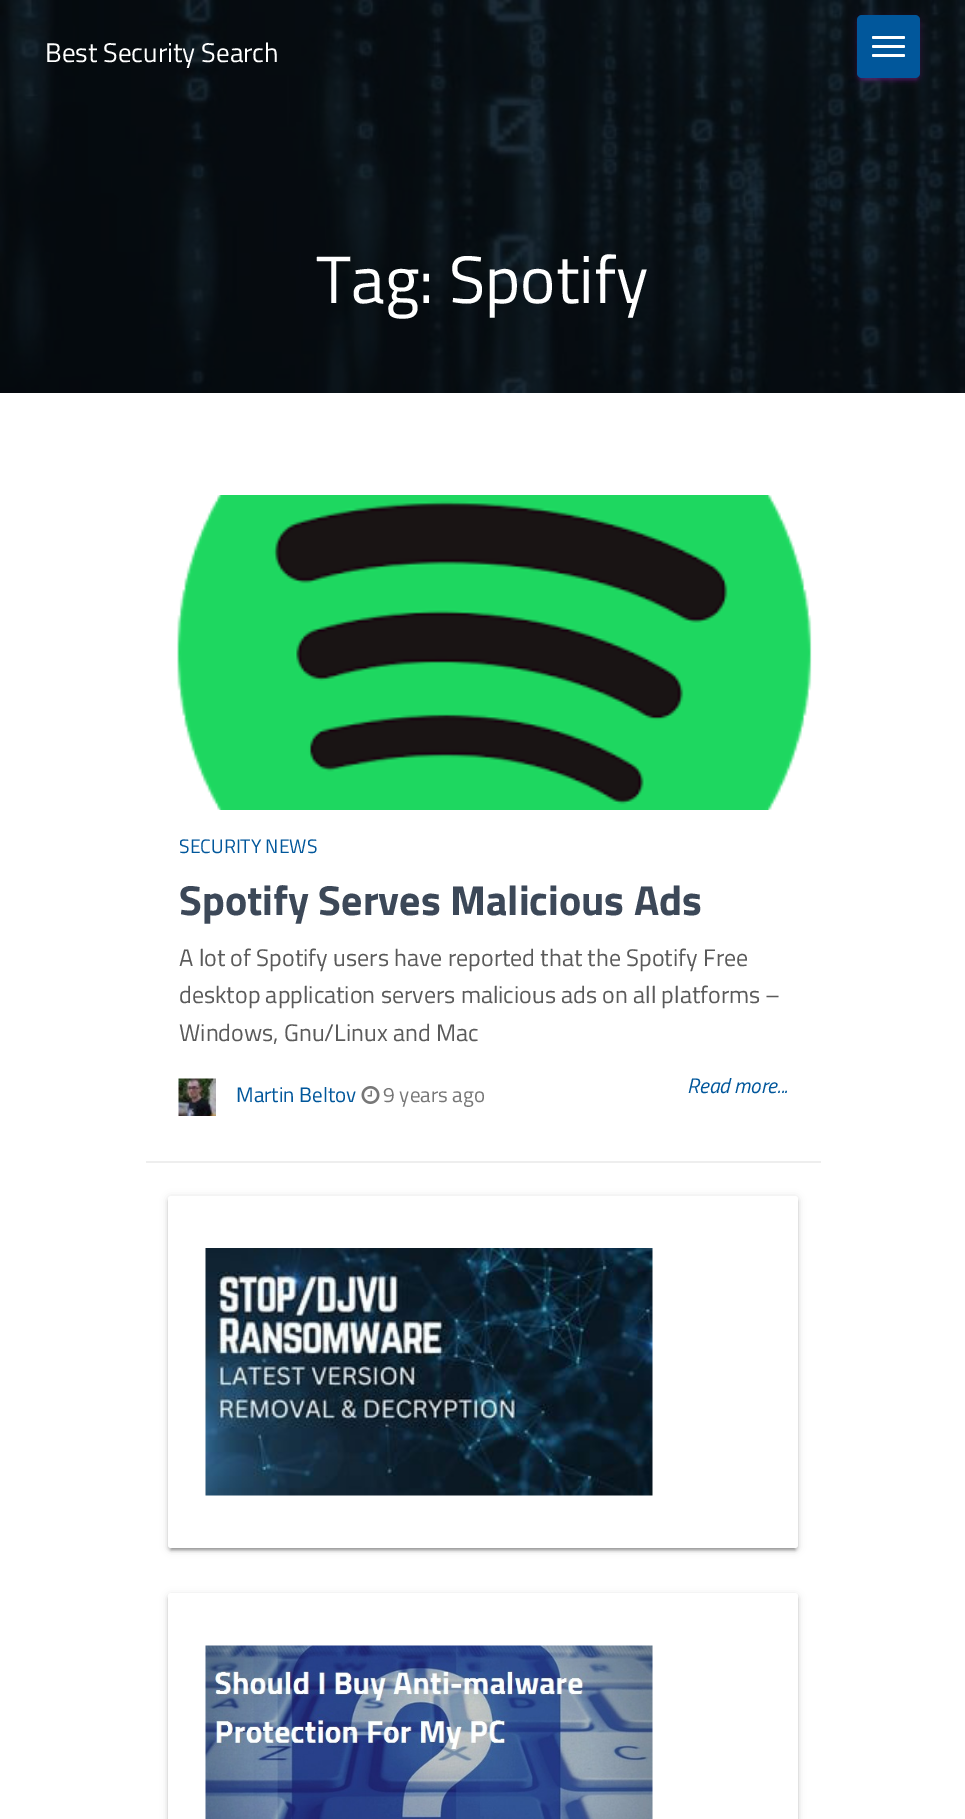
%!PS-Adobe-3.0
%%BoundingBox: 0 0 965 1819
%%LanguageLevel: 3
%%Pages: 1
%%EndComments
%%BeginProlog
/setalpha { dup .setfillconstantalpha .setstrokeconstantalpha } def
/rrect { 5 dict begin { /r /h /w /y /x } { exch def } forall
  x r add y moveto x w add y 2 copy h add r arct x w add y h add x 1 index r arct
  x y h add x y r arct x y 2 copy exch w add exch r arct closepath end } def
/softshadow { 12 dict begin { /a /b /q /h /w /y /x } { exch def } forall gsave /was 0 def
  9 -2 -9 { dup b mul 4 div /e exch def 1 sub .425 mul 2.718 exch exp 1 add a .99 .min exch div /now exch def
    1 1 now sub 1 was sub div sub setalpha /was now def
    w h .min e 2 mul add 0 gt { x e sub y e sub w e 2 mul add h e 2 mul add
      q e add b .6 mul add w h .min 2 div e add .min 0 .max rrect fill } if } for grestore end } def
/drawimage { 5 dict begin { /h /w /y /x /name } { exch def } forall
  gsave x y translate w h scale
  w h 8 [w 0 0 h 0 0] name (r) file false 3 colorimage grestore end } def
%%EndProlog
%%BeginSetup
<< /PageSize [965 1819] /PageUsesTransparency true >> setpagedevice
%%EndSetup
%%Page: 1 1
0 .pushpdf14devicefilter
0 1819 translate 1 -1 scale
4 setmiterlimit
1 setgray
0 0 965 1819 rectfill
(images/1.raw) 0 0 965 393 drawimage
0.612 0.153 0.69 setrgbcolor
857 17 63 63 5 4 0.12 softshadow
860 23 57 57 1.5 1 0.2 softshadow
857 18 63 63 5 1.5 0.14 softshadow
0.004 0.341 0.608 setrgbcolor
857 15 63 63 5 rrect fill
1 setgray
872 36 33 3 1.5 rrect fill
872 45 33 3 1.5 rrect fill
872 54 33 3 1.5 rrect fill
(images/2.raw) 177 495 635 315 drawimage
(images/3.raw) 178 1078 38 38 drawimage
(images/4.raw) 361 1086 19 18 drawimage
0.933 setgray
146 1161 675 2 rectfill
0 setgray
168 1197 630 353 3 4 0.12 softshadow
171 1203 624 347 0 1 0.2 softshadow
168 1199 630 352 3 1.5 0.14 softshadow
1 setgray
168 1196 630 352 3 rrect fill
(images/5.raw) 205 1248 448 248 drawimage
0 setgray
168 1595 630 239 3 4 0.12 softshadow
168 1596 630 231 3 1.5 0.14 softshadow
1 setgray
168 1593 630 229 3 rrect fill
(images/6.raw) 205 1645 448 174 drawimage
/TitilliumWeb-Regular [27 0 0 -27 0 0] selectfont
45 62 moveto (Best Security Search) show
/TitilliumWeb-Regular [67 0 0 -67 0 0] selectfont
316 303 moveto (Tag: Spotify) show
/TitilliumWeb-Regular [19.5 0 0 -19.5 0 0] selectfont
0.004 0.341 0.608 setrgbcolor
179 853 moveto (SECURITY NEWS) show
/TitilliumWeb-Bold [42 0 0 -42 0 0] selectfont
0.235 0.282 0.345 setrgbcolor
179 915 moveto (Spotify Serves Malicious Ads) show
/TitilliumWeb-Regular [24 0 0 -24 0 0] selectfont
0.353 setgray
179 966 moveto (A lot of Spotify users have reported that the Spotify Free) show
179 1003 moveto (desktop application servers malicious ads on all platforms –) show
179 1041 moveto (Windows, Gnu/Linux and Mac) show
/TitilliumWeb-Regular [21 0 0 -21 0 0] selectfont
0.004 0.341 0.608 setrgbcolor
236 1102 moveto (Martin Beltov) show
0.467 setgray
383 1102 moveto (9 years ago) show
/TitilliumWeb-Italic [21 0 0 -21 0 0] selectfont
0.004 0.341 0.608 setrgbcolor
687 1093 moveto (Read more...) show
.poppdf14devicefilter showpage
%%EOF
